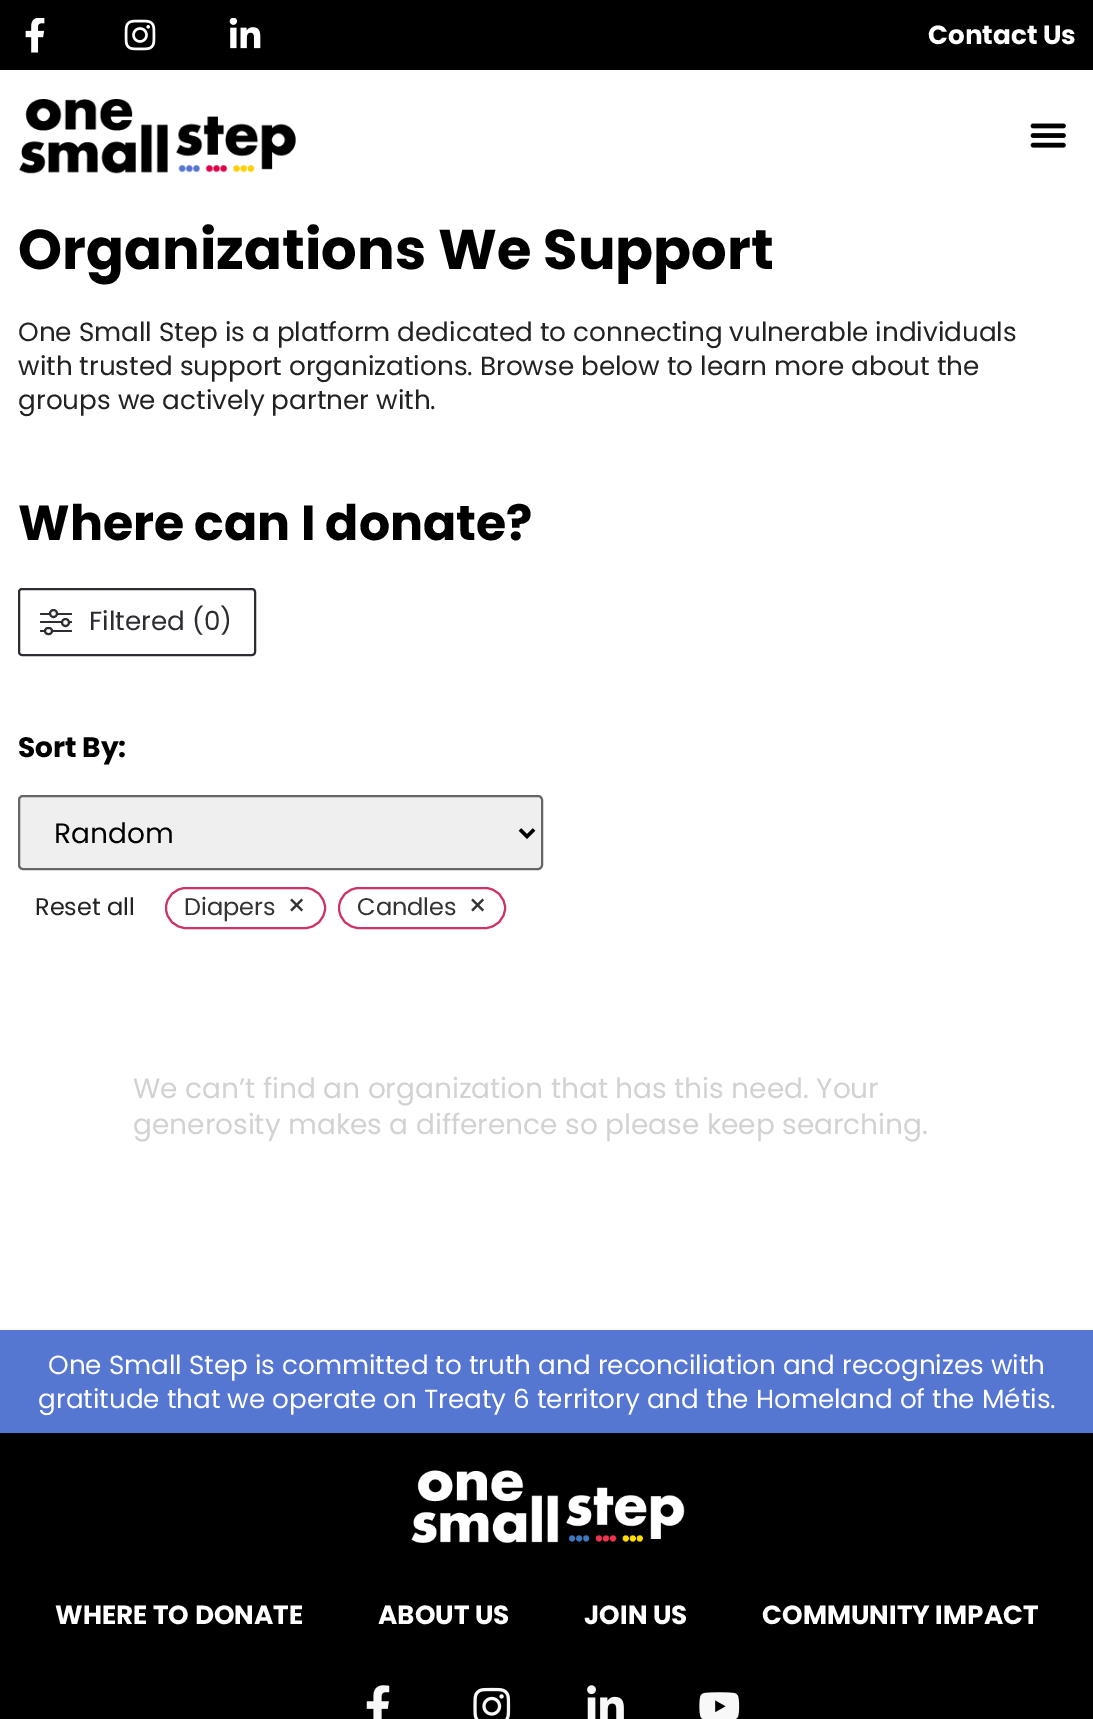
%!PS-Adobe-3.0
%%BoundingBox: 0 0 1093 1719
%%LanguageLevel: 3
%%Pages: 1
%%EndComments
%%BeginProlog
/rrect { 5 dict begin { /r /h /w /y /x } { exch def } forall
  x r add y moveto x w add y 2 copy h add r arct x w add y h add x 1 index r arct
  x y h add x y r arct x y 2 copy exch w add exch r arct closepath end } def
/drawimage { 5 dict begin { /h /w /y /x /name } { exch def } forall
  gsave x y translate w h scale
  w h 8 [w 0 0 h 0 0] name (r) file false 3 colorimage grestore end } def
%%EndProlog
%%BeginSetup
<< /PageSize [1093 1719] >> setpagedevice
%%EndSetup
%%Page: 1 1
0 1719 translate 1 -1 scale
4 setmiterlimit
1 setgray
0 0 1093 1719 rectfill
0 setgray
0 0 1093 70 rectfill
(images/1.raw) 25 18 20 35 drawimage
(images/2.raw) 124 19 32 32 drawimage
(images/3.raw) 229 18 32 31 drawimage
(images/4.raw) 19 99 277 75 drawimage
(images/5.raw) 1030 123 36 25 drawimage
0.173 0.176 0.2 setrgbcolor
2 setlinewidth
19 589 236 66 3 rrect stroke
40 613 32 2 1 rrect fill
1 setgray
newpath 53.5 613.5 3.5 0 360 arc closepath gsave fill grestore
0.173 0.176 0.2 setrgbcolor
stroke
40 621 32 2 1 rrect fill
1 setgray
newpath 65.5 622.5 3.5 0 360 arc closepath gsave fill grestore
0.173 0.176 0.2 setrgbcolor
stroke
40 630 32 2 1 rrect fill
1 setgray
45 628 7 6 3 rrect gsave fill grestore
0.173 0.176 0.2 setrgbcolor
stroke
0.937 setgray
19 796 523 73 4 rrect gsave fill grestore
0.4 setgray
stroke
0 setgray
3.5 setlinewidth
newpath 520 829.5 moveto 527 836.5 lineto 534 829.5 lineto stroke
0.8 0.2 0.4 setrgbcolor
2 setlinewidth
166 888 159 40 20 rrect stroke
339 888 166 40 20 rrect stroke
0.333 0.463 0.82 setrgbcolor
0 1330 1093 103 rectfill
0 setgray
0 1433 1093 286 rectfill
(images/6.raw) 411 1470 274 73 drawimage
(images/7.raw) 366 1685 24 34 drawimage
(images/8.raw) 473 1687 38 32 drawimage
(images/9.raw) 587 1685 37 34 drawimage
(images/10.raw) 699 1692 41 27 drawimage
/Poppins-Bold [26.25 0 0 -26.25 0 0] selectfont
1 setgray
928 44 moveto (Contact Us) show
/Poppins-Bold [56 0 0 -56 0 0] selectfont
0 setgray
18 269 moveto (Organizations We Support) show
/Poppins-Regular [26.25 0 0 -26.25 0 0] selectfont
0.133 setgray
18 341 moveto (One Small Step is a platform dedicated to connecting vulnerable individuals) show
18 375 moveto (with trusted support organizations. Browse below to learn more about the) show
18 409 moveto (groups we actively partner with.) show
/Poppins-Bold [49 0 0 -49 0 0] selectfont
0 setgray
18 540 moveto (Where can I donate?) show
/Poppins-Regular [26.25 0 0 -26.25 0 0] selectfont
0.173 0.176 0.2 setrgbcolor
89 630 moveto (Filtered \(0\)) show
/Poppins-Bold [28 0 0 -28 0 0] selectfont
0 setgray
18 757 moveto (Sort By:) show
/Poppins-Regular [28 0 0 -28 0 0] selectfont
54 843 moveto (Random) show
/Poppins-Regular [24 0 0 -24 0 0] selectfont
0.133 setgray
35 915 moveto (Reset all) show
0.2 setgray
184 915 moveto (Diapers) show
/Poppins-Regular [30 0 0 -30 0 0] selectfont
287 916 moveto (×) show
/Poppins-Regular [24 0 0 -24 0 0] selectfont
357 915 moveto (Candles) show
/Poppins-Regular [30 0 0 -30 0 0] selectfont
468 916 moveto (×) show
/Poppins-Regular [28 0 0 -28 0 0] selectfont
0.824 setgray
133 1098 moveto (We can’t find an organization that has this need. Your) show
133 1134 moveto (generosity makes a difference so please keep searching.) show
/Poppins-Regular [26.25 0 0 -26.25 0 0] selectfont
1 setgray
48 1374 moveto (One Small Step is committed to truth and reconciliation and recognizes with) show
38 1408 moveto (gratitude that we operate on Treaty 6 territory and the Homeland of the Métis.) show
/Poppins-Bold [26.25 0 0 -26.25 0 0] selectfont
55 1624 moveto (WHERE TO DONATE) show
378 1624 moveto (ABOUT US) show
584 1624 moveto (JOIN US) show
762 1624 moveto (COMMUNITY IMPACT) show
showpage
%%EOF
